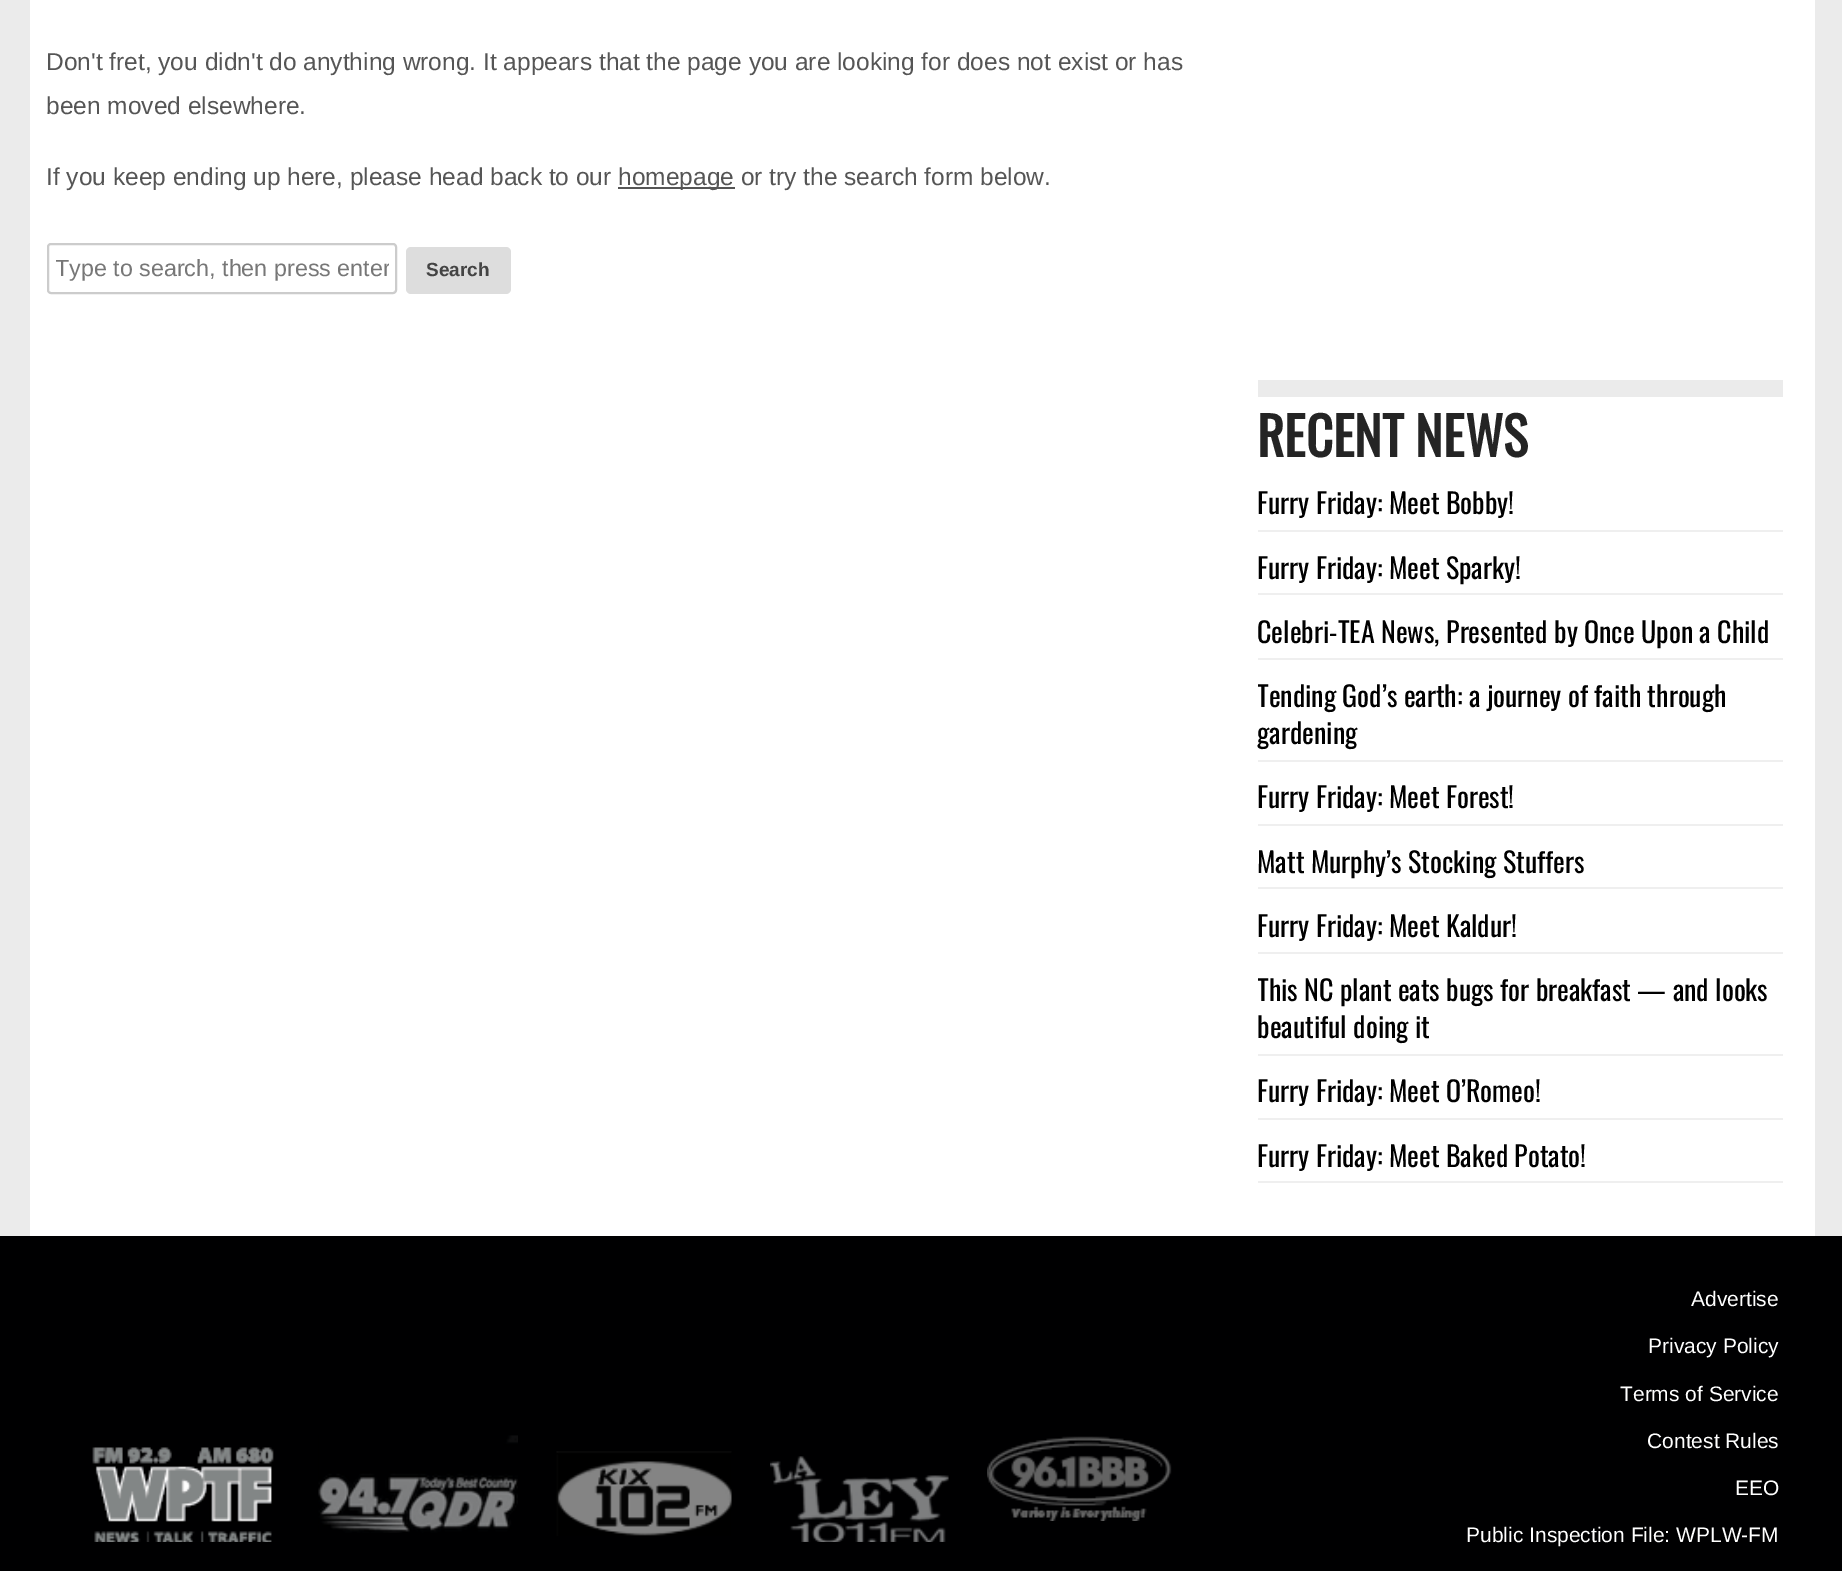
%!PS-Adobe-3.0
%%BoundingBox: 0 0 1842 1571
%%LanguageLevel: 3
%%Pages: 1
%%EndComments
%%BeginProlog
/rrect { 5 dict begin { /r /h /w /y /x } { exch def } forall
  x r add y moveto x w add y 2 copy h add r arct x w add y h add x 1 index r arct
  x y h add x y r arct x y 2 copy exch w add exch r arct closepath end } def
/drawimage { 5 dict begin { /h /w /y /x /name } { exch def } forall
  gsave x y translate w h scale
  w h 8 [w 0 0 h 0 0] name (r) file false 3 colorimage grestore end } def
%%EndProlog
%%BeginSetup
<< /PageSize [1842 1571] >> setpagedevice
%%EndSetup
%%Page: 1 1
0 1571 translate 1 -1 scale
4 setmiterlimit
0.922 setgray
0 0 1842 1571 rectfill
1 setgray
30 0 1785 1236 rectfill
0.333 setgray
618 187 117 2 rectfill
0.8 setgray
2 setlinewidth
48 244 348 49 3 rrect stroke
0.867 setgray
406 247 105 47 5 rrect fill
0.922 setgray
1258 380 525 17 rectfill
0.937 setgray
1258 530 525 2 rectfill
1258 593 525 2 rectfill
1258 658 525 2 rectfill
1258 760 525 2 rectfill
1258 824 525 2 rectfill
1258 887 525 2 rectfill
1258 952 525 2 rectfill
1258 1054 525 2 rectfill
1258 1118 525 2 rectfill
1258 1181 525 2 rectfill
0 0 0.004 setrgbcolor
0 1236 1842 335 rectfill
(images/1.raw) 92 1447 182 95 drawimage
(images/2.raw) 318 1435 200 98 drawimage
(images/3.raw) 556 1451 176 85 drawimage
(images/4.raw) 770 1456 179 86 drawimage
(images/5.raw) 987 1436 185 85 drawimage
/LiberationSans-Regular [24.5 0 0 -24.5 0 0] selectfont
0.333 setgray
46 70 moveto (Don't fret, you didn't do anything wrong. It appears that the page you are looking for does not exist or has) show
46 114 moveto (been moved elsewhere.) show
46 185 moveto (If you keep ending up here, please head back to our) show
618 185 moveto (homepage or try the search form below.) show
gsave
56 256 333 26 rectclip
/LiberationSans-Regular [23.3 0 0 -23.3 0 0] selectfont
0.467 setgray
55 276 moveto (Type to search, then press enter) show
grestore
/LiberationSans-Bold [19 0 0 -19 0 0] selectfont
0.267 setgray
426 276 moveto (Search) show
/Oswald-Bold [52.5 0 0 -52.5 0 0] selectfont
0.141 setgray
1257 457 moveto (RECENT NEWS) show
/Oswald-Regular [28 0 0 -28 0 0] selectfont
0 setgray
1257 514 moveto (Furry Friday: Meet Bobby!) show
1257 579 moveto (Furry Friday: Meet Sparky!) show
1257 643 moveto (Celebri-TEA News, Presented by Once Upon a Child) show
gsave
1258 380 525 821 rectclip
1257 707 moveto (Tending God’s earth: a journey of faith through) show
grestore
1257 744 moveto (gardening) show
1257 808 moveto (Furry Friday: Meet Forest!) show
1257 873 moveto (Matt Murphy’s Stocking Stuffers) show
1257 937 moveto (Furry Friday: Meet Kaldur!) show
gsave
1258 380 525 821 rectclip
1257 1001 moveto (This NC plant eats bugs for breakfast — and looks) show
grestore
1257 1038 moveto (beautiful doing it) show
1257 1102 moveto (Furry Friday: Meet O’Romeo!) show
1257 1167 moveto (Furry Friday: Meet Baked Potato!) show
/LiberationSans-Regular [21 0 0 -21 0 0] selectfont
1 setgray
1691 1306 moveto (Advertise) show
1648 1353 moveto (Privacy Policy) show
1620 1401 moveto (Terms of Service) show
1647 1448 moveto (Contest Rules) show
1735 1495 moveto (EEO) show
1466 1542 moveto (Public Inspection File: WPLW-FM) show
showpage
%%EOF
